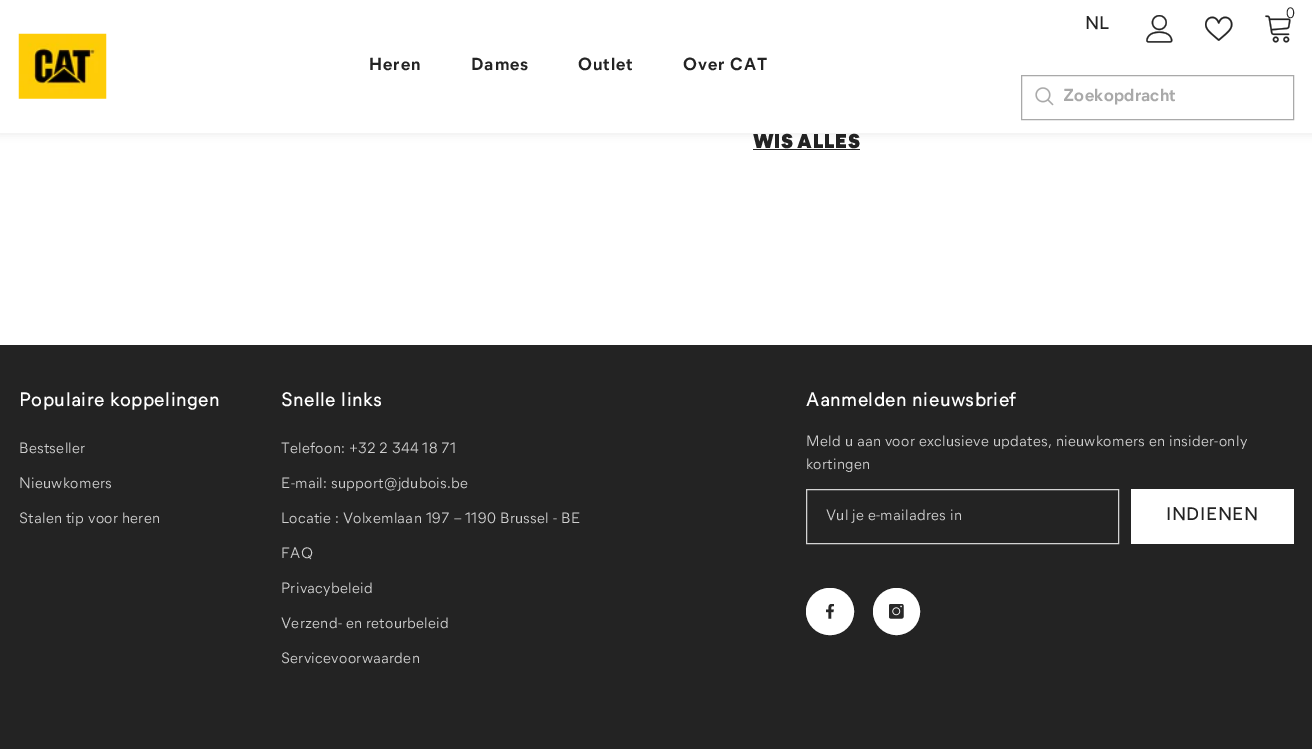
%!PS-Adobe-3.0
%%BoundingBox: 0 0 1312 749
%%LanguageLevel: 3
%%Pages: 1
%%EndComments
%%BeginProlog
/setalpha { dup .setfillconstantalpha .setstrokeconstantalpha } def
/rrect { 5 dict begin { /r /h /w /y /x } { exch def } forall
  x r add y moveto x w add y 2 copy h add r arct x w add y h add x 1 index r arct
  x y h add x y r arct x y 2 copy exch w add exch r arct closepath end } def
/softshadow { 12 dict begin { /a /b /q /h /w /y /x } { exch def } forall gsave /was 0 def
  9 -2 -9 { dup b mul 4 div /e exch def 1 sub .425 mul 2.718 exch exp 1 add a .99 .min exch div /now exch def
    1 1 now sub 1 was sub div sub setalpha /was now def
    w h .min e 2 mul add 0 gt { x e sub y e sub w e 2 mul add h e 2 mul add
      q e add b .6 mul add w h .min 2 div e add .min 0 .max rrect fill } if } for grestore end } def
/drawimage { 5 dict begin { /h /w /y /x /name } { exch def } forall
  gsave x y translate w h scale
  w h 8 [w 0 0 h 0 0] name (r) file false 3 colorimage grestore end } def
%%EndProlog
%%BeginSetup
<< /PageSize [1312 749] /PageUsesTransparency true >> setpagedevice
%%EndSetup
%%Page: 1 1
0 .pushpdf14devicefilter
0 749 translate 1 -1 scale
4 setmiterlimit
1 setgray
0 0 1312 749 rectfill
0.118 setgray
0 1 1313 133 0 4 0.1 softshadow
1 setgray
0 0 1312 133 rectfill
(images/1.raw) 18 33 89 66 drawimage
(images/2.raw) 1265 15 26 28 drawimage
(images/3.raw) 1146 15 27 28 drawimage
(images/4.raw) 1205 16 28 25 drawimage
0.663 setgray
1021.5 75.5 272 44 rectstroke
(images/5.raw) 1035 87 19 19 drawimage
0.137 setgray
753 149 107 1 rectfill
0 345 1312 404 rectfill
0.827 setgray
806.5 489.5 312 54 rectstroke
1 setgray
1131 489 163 55 rectfill
806.5 588.5 47 46 23 rrect gsave fill grestore
stroke
(images/6.raw) 826 604 8 15 drawimage
newpath 896.5 611.5 23 0 360 arc closepath gsave fill grestore
stroke
(images/7.raw) 889 604 15 15 drawimage
/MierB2-Bold [17.5 0 0 -17.5 0 0] selectfont
0.137 setgray
369 70 moveto 1 0 (Heren) ashow
471 70 moveto 1 0 (Dames) ashow
578 70 moveto 1 0 (Outlet) ashow
683 70 moveto 1 0 (Over CAT) ashow
/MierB-Regular [15 0 0 -15 0 0] selectfont
1286 18 moveto (0) show
/MierB-Bold [17.5 0 0 -17.5 0 0] selectfont
1085 29 moveto 0.3 0 (NL) ashow
/MierB2-Bold [17.5 0 0 -17.5 0 0] selectfont
0.663 setgray
1063 101 moveto 0.3 0 (Zoekopdracht) ashow
/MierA-Black [20 0 0 -20 0 0] selectfont
0.137 setgray
753 148 moveto 0.5 0 (WIS ALLES) ashow
/MierB-Bold [18.75 0 0 -18.75 0 0] selectfont
1 setgray
19 406 moveto 0.9 0 (Populaire koppelingen) ashow
/MierB-Regular [15 0 0 -15 0 0] selectfont
0.812 setgray
19 453 moveto 0.3 0 (Bestseller) ashow
19 488 moveto 0.3 0 (Nieuwkomers) ashow
19 523 moveto 0.3 0 (Stalen tip voor heren) ashow
/MierB-Bold [18.75 0 0 -18.75 0 0] selectfont
1 setgray
281 406 moveto 0.9 0 (Snelle links) ashow
/MierB-Regular [15 0 0 -15 0 0] selectfont
0.812 setgray
281 453 moveto 0.3 0 (Telefoon: +32 2 344 18 71) ashow
281 488 moveto 0.3 0 (E-mail: support@jdubois.be) ashow
281 523 moveto 0.3 0 (Locatie : Volxemlaan 197 – 1190 Brussel - BE) ashow
281 558 moveto 0.3 0 (FAQ) ashow
281 593 moveto 0.3 0 (Privacybeleid) ashow
281 628 moveto 0.3 0 (Verzend- en retourbeleid) ashow
281 663 moveto 0.3 0 (Servicevoorwaarden) ashow
/MierB-Bold [18.75 0 0 -18.75 0 0] selectfont
1 setgray
806 406 moveto 0.9 0 (Aanmelden nieuwsbrief) ashow
/MierB-Regular [15 0 0 -15 0 0] selectfont
0.812 setgray
806 446 moveto 0.3 0 (Meld u aan voor exclusieve updates, nieuwkomers en insider-only) ashow
806 469 moveto 0.3 0 (kortingen) ashow
826 520 moveto 0.3 0 (Vul je e-mailadres in) ashow
/MierB-Bold [17.5 0 0 -17.5 0 0] selectfont
0.137 setgray
1166 520 moveto 1 0 (INDIENEN) ashow
.poppdf14devicefilter showpage
%%EOF
